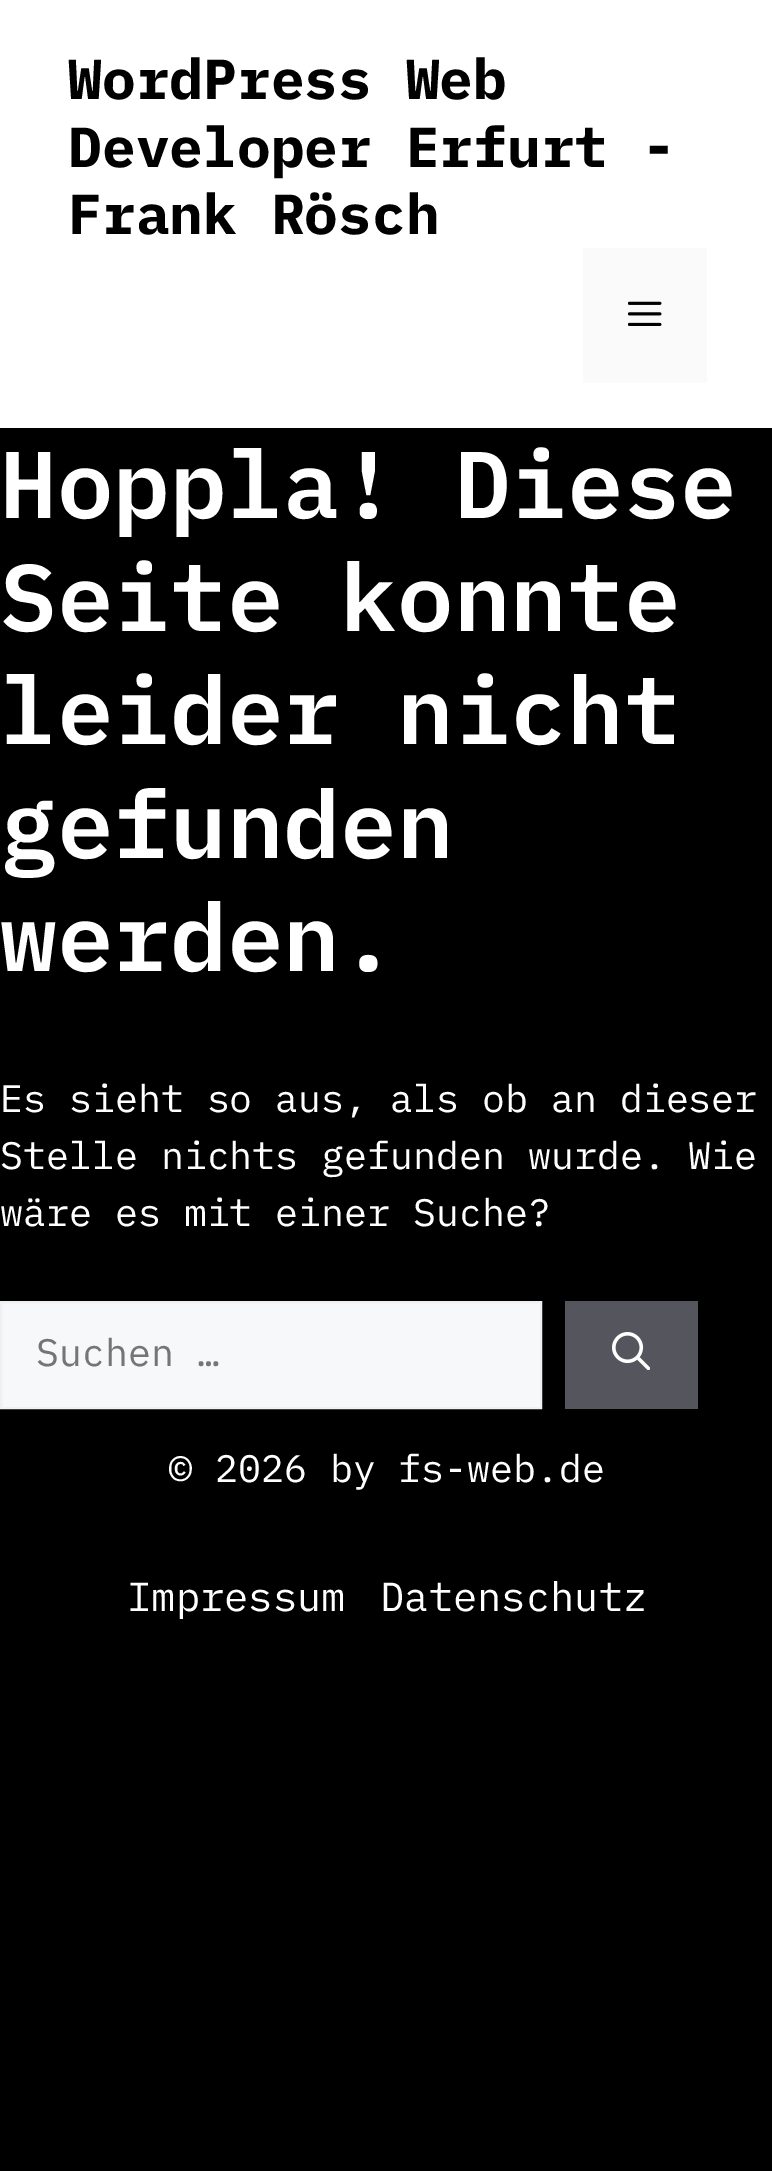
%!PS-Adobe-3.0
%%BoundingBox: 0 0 772 2171
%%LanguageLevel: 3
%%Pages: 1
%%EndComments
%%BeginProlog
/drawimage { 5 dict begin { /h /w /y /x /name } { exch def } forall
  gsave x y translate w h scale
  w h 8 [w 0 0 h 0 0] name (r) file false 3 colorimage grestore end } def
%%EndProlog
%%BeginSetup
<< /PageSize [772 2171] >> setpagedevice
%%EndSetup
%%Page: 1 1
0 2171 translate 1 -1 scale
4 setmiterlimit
0 setgray
0 0 772 2171 rectfill
1 setgray
0 0 772 428 rectfill
0.98 setgray
583 248 124 135 rectfill
(images/1.raw) 628 301 34 25 drawimage
0.969 0.973 0.976 setrgbcolor
newpath 1 1302 moveto 541 1302 lineto 541 1408 lineto 1 1408 lineto closepath gsave fill grestore
0.941 setgray
2 setlinewidth
stroke
0.333 0.333 0.369 setrgbcolor
565 1301 133 108 rectfill
(images/2.raw) 612 1332 38 38 drawimage
/IBMPlexMono-Bold [56.25 0 0 -56.25 0 0] selectfont
0 setgray
68 99 moveto (WordPress Web) show
68 167 moveto (Developer Erfurt -) show
68 234 moveto (Frank Rösch) show
/IBMPlexMono-SemiBold [94.5 0 0 -94.5 0 0] selectfont
1 setgray
0 518 moveto (Hoppla! Diese) show
0 631 moveto (Seite konnte) show
0 744 moveto (leider nicht) show
0 858 moveto (gefunden) show
0 971 moveto (werden.) show
/IBMPlexMono-Regular [38.25 0 0 -38.25 0 0] selectfont
0 1112 moveto (Es sieht so aus, als ob an dieser) show
0 1169 moveto (Stelle nichts gefunden wurde. Wie) show
0 1226 moveto (wäre es mit einer Suche?) show
0.459 setgray
36 1366 moveto (Suchen …) show
1 setgray
169 1482 moveto (© 2026 by fs-web.de) show
/IBMPlexMono-Regular [40.5 0 0 -40.5 0 0] selectfont
127 1611 moveto (Impressum) show
380 1611 moveto (Datenschutz) show
showpage
%%EOF
